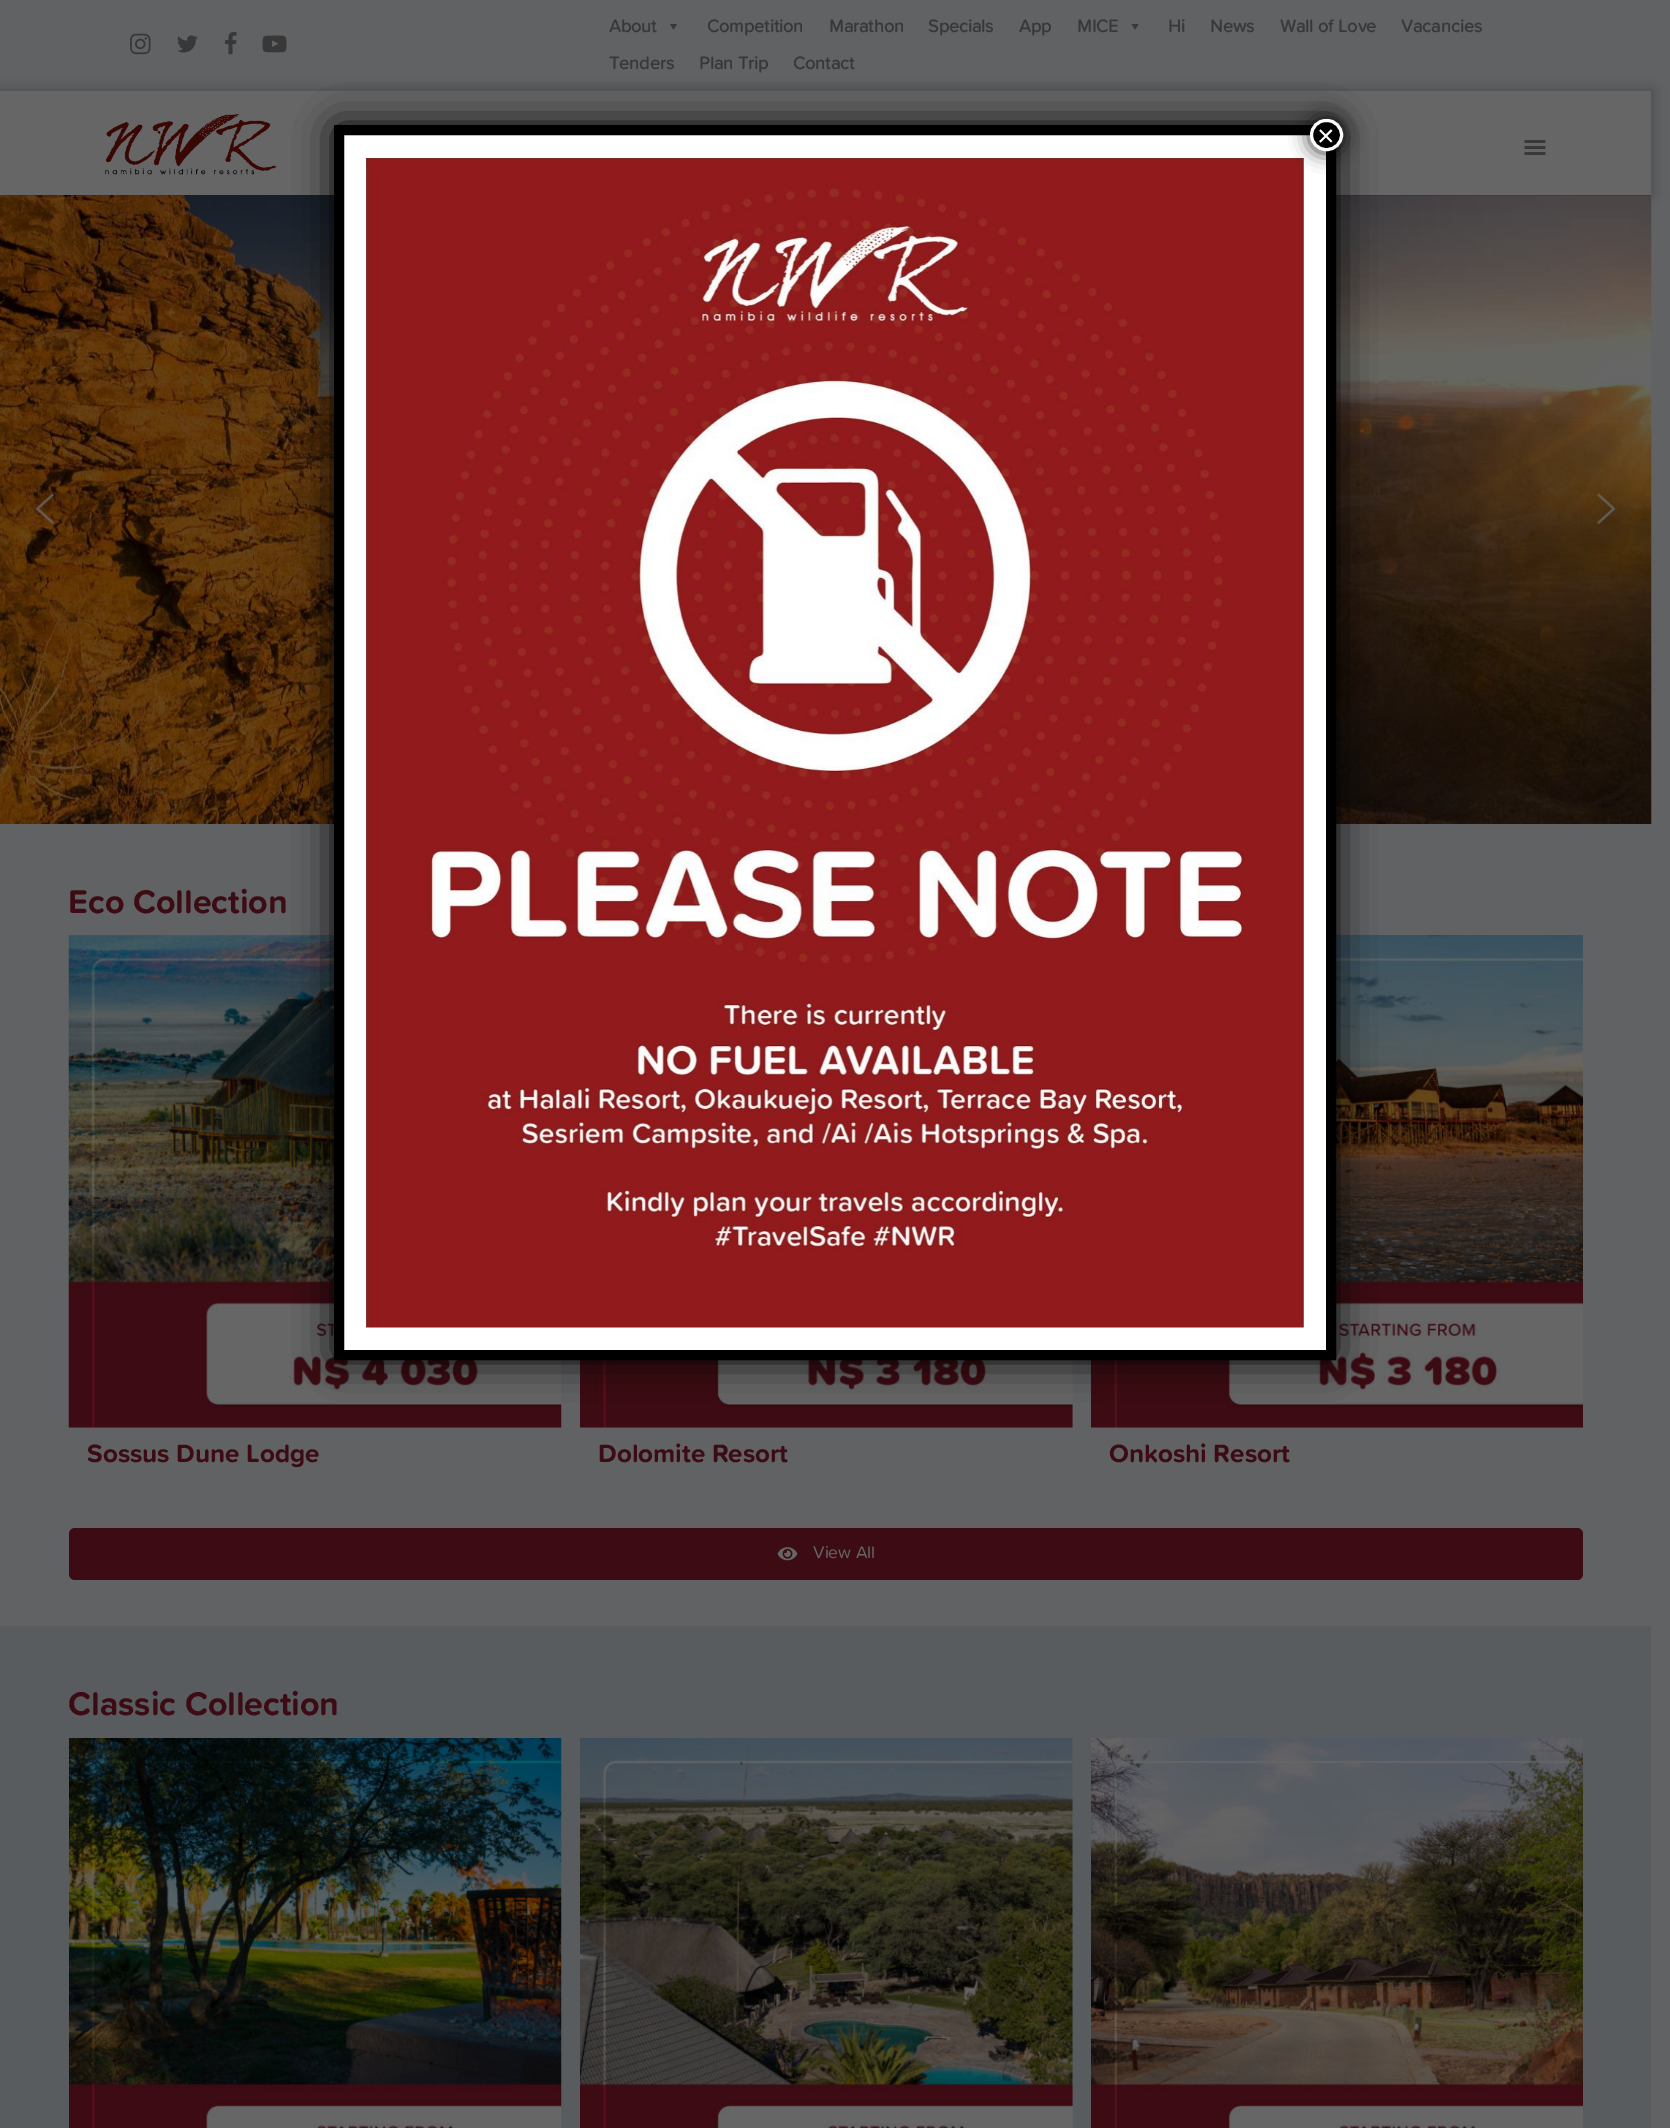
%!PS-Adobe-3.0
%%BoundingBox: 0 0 1670 2128
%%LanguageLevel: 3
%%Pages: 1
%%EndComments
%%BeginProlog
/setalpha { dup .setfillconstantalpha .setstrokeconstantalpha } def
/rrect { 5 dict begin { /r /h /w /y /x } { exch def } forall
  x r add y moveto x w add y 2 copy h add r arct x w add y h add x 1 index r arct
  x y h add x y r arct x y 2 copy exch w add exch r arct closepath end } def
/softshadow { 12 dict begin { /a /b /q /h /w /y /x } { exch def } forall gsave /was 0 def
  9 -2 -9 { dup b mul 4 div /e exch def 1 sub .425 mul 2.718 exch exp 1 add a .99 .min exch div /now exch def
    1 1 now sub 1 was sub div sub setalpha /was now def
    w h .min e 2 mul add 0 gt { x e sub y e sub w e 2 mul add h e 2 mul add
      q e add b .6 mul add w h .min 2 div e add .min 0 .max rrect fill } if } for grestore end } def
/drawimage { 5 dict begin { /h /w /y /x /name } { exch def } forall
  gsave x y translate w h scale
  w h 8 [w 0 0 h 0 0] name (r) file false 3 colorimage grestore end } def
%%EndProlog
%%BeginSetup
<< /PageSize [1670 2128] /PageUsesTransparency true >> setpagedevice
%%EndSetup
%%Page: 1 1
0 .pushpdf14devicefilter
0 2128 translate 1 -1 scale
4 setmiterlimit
0.38 0.384 0.392 setrgbcolor
0 0 1670 2128 rectfill
(images/1.raw) 130 33 21 22 drawimage
(images/2.raw) 177 35 21 18 drawimage
(images/3.raw) 225 31 12 24 drawimage
(images/4.raw) 262 35 25 18 drawimage
0.22 setgray
newpath 677 24 moveto 673.5 29.5 lineto 670 24 lineto closepath fill
newpath 1138.5 24 moveto 1135 29.5 lineto 1131.5 24 lineto closepath fill
0 setgray
-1 90 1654 106 0 6 0.22 softshadow
0.4 setgray
0 91 1651 104 rectfill
(images/5.raw) 105 114 172 61 drawimage
(images/6.raw) 1524 140 22 15 drawimage
(images/7.raw) 0 195 1652 629 drawimage
(images/8.raw) 36 493 18 31 drawimage
(images/9.raw) 1597 493 18 31 drawimage
0.369 0.376 0.384 setrgbcolor
69 1427 492 1 rectfill
(images/10.raw) 68 935 494 493 drawimage
580 1427 491 1 rectfill
(images/11.raw) 580 1360 493 68 drawimage
1090 1360 493 68 rectfill
(images/12.raw) 1091 935 492 493 drawimage
0.235 0.043 0.075 setrgbcolor
69 1528 1514 52 6 rrect fill
(images/13.raw) 777 1547 21 14 drawimage
0.349 0.361 0.373 setrgbcolor
0 1626 1651 502 rectfill
(images/14.raw) 69 1738 493 390 drawimage
(images/15.raw) 580 1738 493 390 drawimage
(images/16.raw) 1091 1738 492 390 drawimage
0.008 setgray
334 125 1002 1235 4 19 1 softshadow
1 setgray
344 135 982 1215 rectfill
0 setgray
10 setlinewidth
newpath 339 130 moveto 1331 130 lineto 1331 1355 lineto 339 1355 lineto closepath stroke
(images/17.raw) 366 158 938 1170 drawimage
0.008 setgray
1309 118 35 35 17.5 9.5 0.75 softshadow
0 setgray
1311.5 120.5 30 29 14.5 rrect gsave fill grestore
1 setgray
3 setlinewidth
stroke
/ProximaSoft-Bold [18 0 0 -18 0 0] selectfont
0.22 setgray
609 32 moveto (About) show
707 32 moveto (Competition) show
829 32 moveto (Marathon) show
928 32 moveto (Specials) show
1019 32 moveto (App) show
1077 32 moveto (MICE) show
1168 32 moveto (Hi) show
1210 32 moveto (News) show
1280 32 moveto (Wall of Love) show
1401 32 moveto (Vacancies) show
609 69 moveto (Tenders) show
699 69 moveto (Plan Trip) show
793 69 moveto (Contact) show
/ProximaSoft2-Bold [34 0 0 -34 0 0] selectfont
0.235 0.043 0.075 setrgbcolor
68 913 moveto (Eco Collection) show
/ProximaSoft2-Bold [26 0 0 -26 0 0] selectfont
87 1462 moveto (Sossus Dune Lodge) show
598 1462 moveto (Dolomite Resort) show
1109 1462 moveto (Onkoshi Resort) show
/ProximaSoft-Regular [17.5 0 0 -17.5 0 0] selectfont
0.4 setgray
813 1558 moveto (View All) show
/ProximaSoft2-Bold [34 0 0 -34 0 0] selectfont
0.235 0.043 0.075 setrgbcolor
68 1715 moveto (Classic Collection) show
/LiberationSans-Regular [30 0 0 -30 0 0] selectfont
1 setgray
1317 146 moveto (×) show
.poppdf14devicefilter showpage
%%EOF
